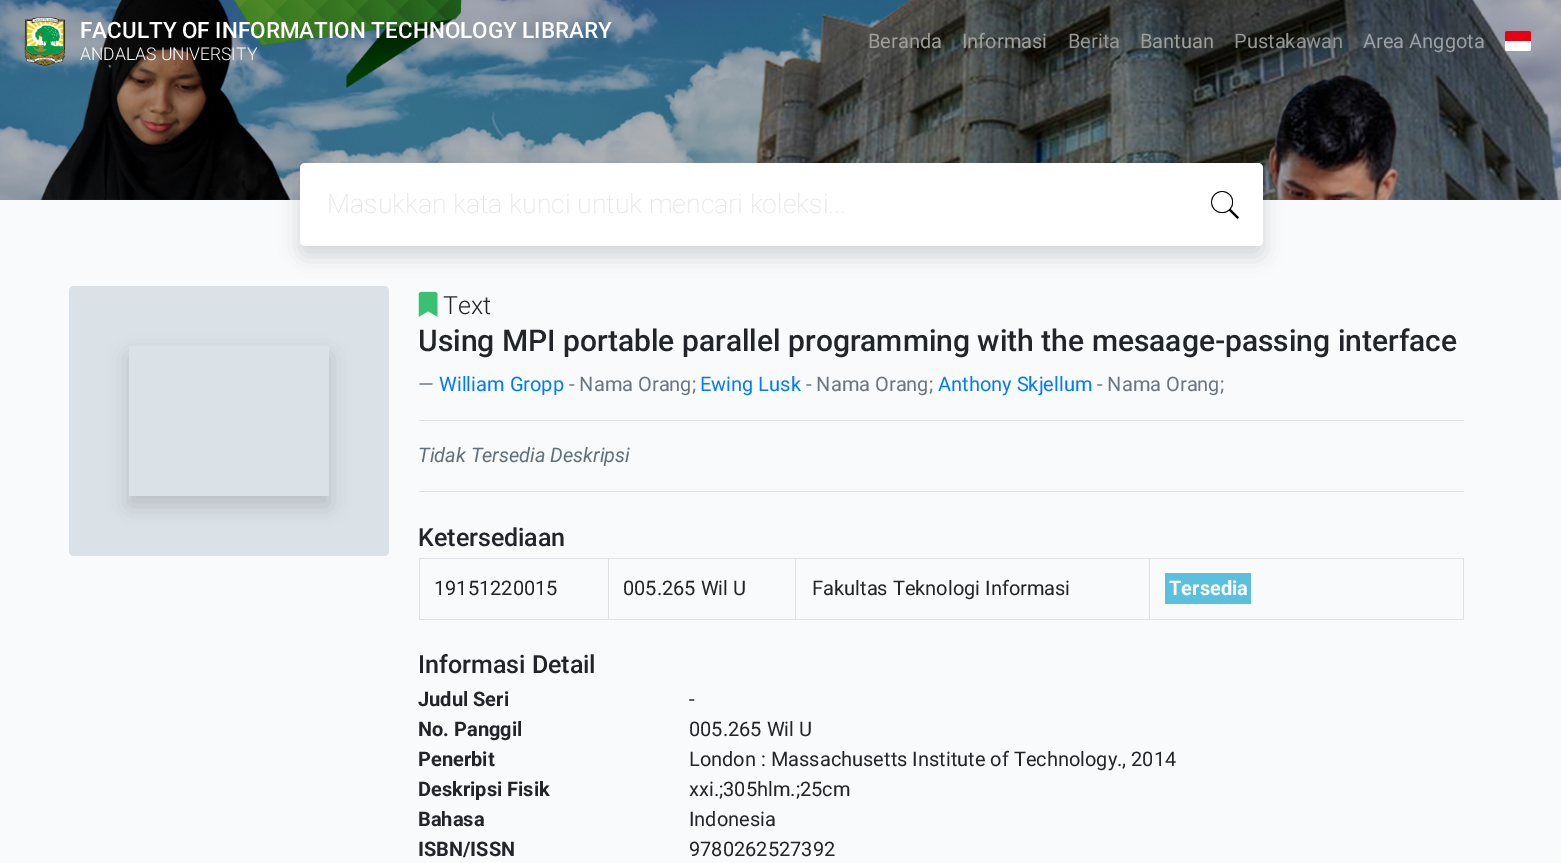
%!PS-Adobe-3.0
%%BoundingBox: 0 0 1561 863
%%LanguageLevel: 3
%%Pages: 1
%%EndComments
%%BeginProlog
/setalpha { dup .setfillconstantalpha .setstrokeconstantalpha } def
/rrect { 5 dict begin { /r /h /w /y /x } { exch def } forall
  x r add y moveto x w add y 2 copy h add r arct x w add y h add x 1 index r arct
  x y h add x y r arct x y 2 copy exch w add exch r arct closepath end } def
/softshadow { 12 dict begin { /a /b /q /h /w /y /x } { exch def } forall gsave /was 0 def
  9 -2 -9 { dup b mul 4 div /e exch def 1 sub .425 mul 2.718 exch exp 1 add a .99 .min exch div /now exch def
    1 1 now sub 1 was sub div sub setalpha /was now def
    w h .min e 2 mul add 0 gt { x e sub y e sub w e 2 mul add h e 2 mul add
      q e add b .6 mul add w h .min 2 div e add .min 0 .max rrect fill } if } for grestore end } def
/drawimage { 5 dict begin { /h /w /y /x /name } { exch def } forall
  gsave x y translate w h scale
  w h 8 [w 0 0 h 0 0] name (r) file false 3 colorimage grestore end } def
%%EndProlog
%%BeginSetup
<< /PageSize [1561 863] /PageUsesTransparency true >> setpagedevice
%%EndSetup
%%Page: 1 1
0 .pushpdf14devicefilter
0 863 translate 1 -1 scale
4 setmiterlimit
0.973 0.98 0.988 setrgbcolor
0 0 1561 863 rectfill
(images/1.raw) 0 199 1561 1 drawimage
(images/2.raw) 0 0 1561 200 drawimage
(images/3.raw) 24 17 42 49 drawimage
0.906 0 0.067 setrgbcolor
newpath 1507.5 31 moveto 1528.5 31 lineto 1530 31 1531 32 1531 33.5 curveto 1531 42 lineto 1505 42 lineto 1505 33.5 lineto 1505 32 1506 31 1507.5 31 curveto closepath fill
1 setgray
newpath 1505 41 moveto 1531 41 lineto 1531 48.5 lineto 1531 50 1530 51 1528.5 51 curveto 1507.5 51 lineto 1506 51 1505 50 1505 48.5 curveto closepath fill
0.855 0.882 0.906 setrgbcolor
69 286 320 270 5 rrect fill
0 setgray
300 173 963 83 5 10 0.15 softshadow
1 setgray
300 163 963 83 5 rrect fill
(images/4.raw) 1211 191 28 28 drawimage
gsave
newpath 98 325 moveto 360 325 lineto 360 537 lineto 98 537 lineto closepath 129 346 moveto 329 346 lineto 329 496 lineto 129 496 lineto closepath eoclip newpath
0 setgray
129 356 200 150 0 10 0.15 softshadow
grestore
(images/5.raw) 418 291 20 26 drawimage
0.875 0.882 0.89 setrgbcolor
419 420 1045 1 rectfill
419 491 1045 1 rectfill
0.871 0.886 0.902 setrgbcolor
419 558 1045 1 rectfill
1463 558 1 62 rectfill
419 619 1045 1 rectfill
419 558 1 62 rectfill
608 558 1 62 rectfill
795 558 1 62 rectfill
1149 558 1 62 rectfill
0.357 0.753 0.871 setrgbcolor
1165 573 86 31 rectfill
/Roboto-Medium [22.5 0 0 -22.5 0 0] selectfont
1 setgray
80 38 moveto (FACULTY OF INFORMATION TECHNOLOGY LIBRARY) show
/Roboto-Light [17.5 0 0 -17.5 0 0] selectfont
80 60 moveto (ANDALAS UNIVERSITY) show
/Roboto-Regular [20 0 0 -20 0 0] selectfont
0.624 0.624 0.612 setrgbcolor
868 48 moveto (Beranda) show
962 48 moveto (Informasi) show
0.584 0.592 0.584 setrgbcolor
1068 48 moveto (Berita) show
0.624 0.624 0.612 setrgbcolor
1140 48 moveto (Bantuan) show
0.584 0.592 0.584 setrgbcolor
1234 48 moveto (Pustakawan) show
0.612 0.631 0.647 setrgbcolor
1363 48 moveto (Area Anggota) show
/Roboto-ExtraLight [26.7 0 0 -26.7 0 0] selectfont
0.902 setgray
327 213 moveto (Masukkan kata kunci untuk mencari koleksi...) show
/Roboto-Light [25 0 0 -25 0 0] selectfont
0.129 0.145 0.161 setrgbcolor
443 314 moveto (Text) show
/Roboto-Medium [30 0 0 -30 0 0] selectfont
418 351 moveto (Using MPI portable parallel programming with the mesaage-passing interface) show
/Roboto-Regular [20 0 0 -20 0 0] selectfont
0.424 0.459 0.49 setrgbcolor
418 391 moveto (—) show
0 0.482 1 setrgbcolor
439 391 moveto (William Gropp) show
0.424 0.459 0.49 setrgbcolor
569 391 moveto (- Nama Orang;) show
0 0.482 1 setrgbcolor
700 391 moveto (Ewing Lusk) show
0.424 0.459 0.49 setrgbcolor
806 391 moveto (- Nama Orang;) show
0 0.482 1 setrgbcolor
938 391 moveto (Anthony Skjellum) show
0.424 0.459 0.49 setrgbcolor
1097 391 moveto (- Nama Orang;) show
/Roboto-Italic [20 0 0 -20 0 0] selectfont
0.376 0.435 0.482 setrgbcolor
418 462 moveto (Tidak Tersedia Deskripsi) show
/Roboto-Medium [25 0 0 -25 0 0] selectfont
0.129 0.145 0.161 setrgbcolor
418 546 moveto (Ketersediaan) show
/Roboto-Regular [20 0 0 -20 0 0] selectfont
434 595 moveto (19151220015) show
623 595 moveto (005.265 Wil U) show
812 595 moveto (Fakultas Teknologi Informasi) show
/Roboto-Bold [20 0 0 -20 0 0] selectfont
1 setgray
1169 595 moveto (Tersedia) show
/Roboto-Medium [25 0 0 -25 0 0] selectfont
0.129 0.145 0.161 setrgbcolor
418 673 moveto (Informasi Detail) show
/Roboto-Bold [20 0 0 -20 0 0] selectfont
418 706 moveto (Judul Seri) show
/Roboto-Regular [20 0 0 -20 0 0] selectfont
689 706 moveto (-) show
/Roboto-Bold [20 0 0 -20 0 0] selectfont
418 736 moveto (No. Panggil) show
/Roboto-Regular [20 0 0 -20 0 0] selectfont
689 736 moveto (005.265 Wil U) show
/Roboto-Bold [20 0 0 -20 0 0] selectfont
418 766 moveto (Penerbit) show
/Roboto-Regular [20 0 0 -20 0 0] selectfont
689 766 moveto (London : Massachusetts Institute of Technology., 2014) show
/Roboto-Bold [20 0 0 -20 0 0] selectfont
418 796 moveto (Deskripsi Fisik) show
/Roboto-Regular [20 0 0 -20 0 0] selectfont
689 796 moveto (xxi.;305hlm.;25cm) show
/Roboto-Bold [20 0 0 -20 0 0] selectfont
418 826 moveto (Bahasa) show
/Roboto-Regular [20 0 0 -20 0 0] selectfont
689 826 moveto (Indonesia) show
/Roboto-Bold [20 0 0 -20 0 0] selectfont
418 856 moveto (ISBN/ISSN) show
/Roboto-Regular [20 0 0 -20 0 0] selectfont
689 856 moveto (9780262527392) show
.poppdf14devicefilter showpage
%%EOF
